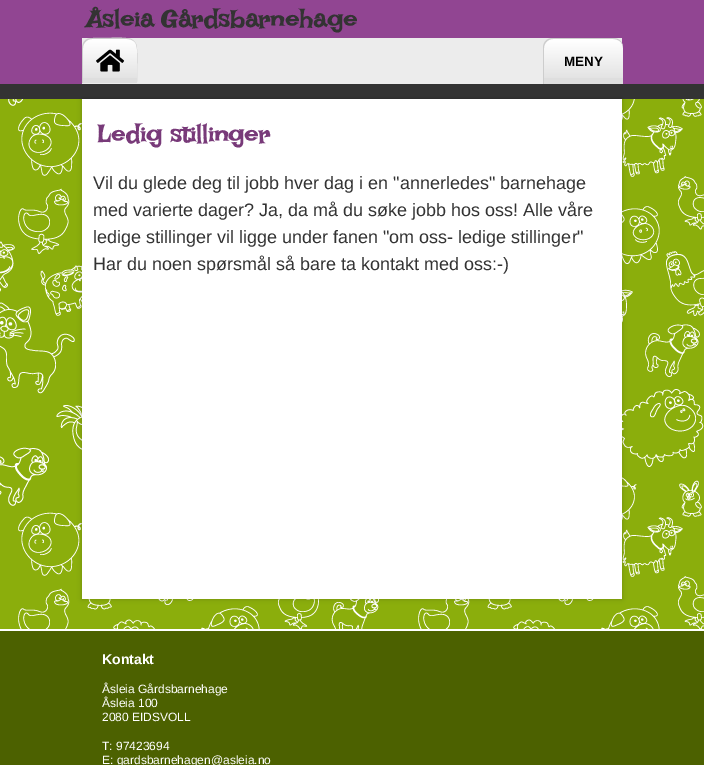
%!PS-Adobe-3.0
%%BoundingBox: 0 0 704 765
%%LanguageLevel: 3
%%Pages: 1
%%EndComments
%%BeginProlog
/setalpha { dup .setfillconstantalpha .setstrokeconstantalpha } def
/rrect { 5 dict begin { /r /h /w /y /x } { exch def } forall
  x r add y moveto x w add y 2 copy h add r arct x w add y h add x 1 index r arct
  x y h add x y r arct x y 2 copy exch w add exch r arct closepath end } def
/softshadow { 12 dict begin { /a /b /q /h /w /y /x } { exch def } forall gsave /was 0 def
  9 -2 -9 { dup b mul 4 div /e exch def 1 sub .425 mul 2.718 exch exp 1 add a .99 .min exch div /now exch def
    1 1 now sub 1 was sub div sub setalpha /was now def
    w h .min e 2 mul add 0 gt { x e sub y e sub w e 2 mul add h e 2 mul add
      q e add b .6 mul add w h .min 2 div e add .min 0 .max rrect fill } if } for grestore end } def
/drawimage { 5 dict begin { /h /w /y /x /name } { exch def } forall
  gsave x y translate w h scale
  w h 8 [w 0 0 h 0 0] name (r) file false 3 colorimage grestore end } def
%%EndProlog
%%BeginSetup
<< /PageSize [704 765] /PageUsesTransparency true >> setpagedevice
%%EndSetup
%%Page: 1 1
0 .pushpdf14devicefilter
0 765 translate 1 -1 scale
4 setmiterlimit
1 setgray
0 0 704 765 rectfill
(images/1.raw) 0 99 704 530 drawimage
0.569 0.271 0.573 setrgbcolor
0 0 704 84 rectfill
0.2 setgray
0 84 704 15 rectfill
0.925 setgray
82 38 540 46 rectfill
0.871 setgray
newpath 92 38 moveto 127 38 lineto 132.5 38 137 42.5 137 48 curveto 137 83 lineto 82 83 lineto 82 48 lineto 82 42.5 86.5 38 92 38 curveto closepath fill
(images/2.raw) 82 39 55 39 drawimage
0.804 setgray
newpath 92 38 moveto 144 38 137 31 137 83 curveto 82 83 lineto 82 48 lineto 82 42 86 38 92 38 curveto closepath 92 39 moveto 127 39 lineto 133 39 137 43 137 48 curveto 137 83 lineto 83 83 lineto 83 48 lineto 83 43 87 39 92 39 curveto closepath eofill
(images/3.raw) 96 49 29 23 drawimage
0.871 setgray
newpath 553 38 moveto 613 38 lineto 618.5 38 623 42.5 623 48 curveto 623 84 lineto 543 84 lineto 543 48 lineto 543 42.5 547.5 38 553 38 curveto closepath fill
(images/4.raw) 543 39 80 39 drawimage
0.804 setgray
newpath 553 38 moveto 613 38 lineto 619 38 623 42 623 48 curveto 623 84 lineto 543 84 lineto 543 48 lineto 543 42 547 38 553 38 curveto closepath 553 39 moveto 613 39 lineto 619 39 623 43 623 48 curveto 623 84 lineto 544 84 lineto 544 48 lineto 544 43 548 39 553 39 curveto closepath eofill
0 setgray
82 99 540 500 0 2.5 0.2 softshadow
1 setgray
82 99 540 500 rectfill
0.298 0.38 0 setrgbcolor
0 631 704 134 rectfill
/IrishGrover-Bold [25.25 0 0 -25.25 0 0] selectfont
0.2 setgray
86 28 moveto (Åsleia Gårdsbarnehage) show
/LiberationSans-Bold [13.5 0 0 -13.5 0 0] selectfont
0 setgray
564 66 moveto (MENY) show
/IrishGrover-Bold [25.25 0 0 -25.25 0 0] selectfont
0.471 0.227 0.475 setrgbcolor
97 143 moveto (Ledig stillinger) show
/LiberationSans-Regular [18 0 0 -18 0 0] selectfont
0.2 setgray
93 189 moveto (Vil du glede deg til jobb hver dag i en "annerledes" barnehage) show
93 216 moveto (med varierte dager? Ja, da må du søke jobb hos oss! Alle våre) show
93 243 moveto (ledige stillinger vil ligge under fanen "om oss- ledige stillinger") show
93 270 moveto (Har du noen spørsmål så bare ta kontakt med oss:-\)) show
/LiberationSans-Bold [14 0 0 -14 0 0] selectfont
1 setgray
102 664 moveto (Kontakt) show
/LiberationSans-Regular [12 0 0 -12 0 0] selectfont
102 693 moveto (Åsleia Gårdsbarnehage) show
102 707 moveto (Åsleia 100) show
102 721 moveto (2080 EIDSVOLL) show
102 750 moveto (T: 97423694) show
102 764 moveto (E: gardsbarnehagen@asleia.no) show
.poppdf14devicefilter showpage
%%EOF
